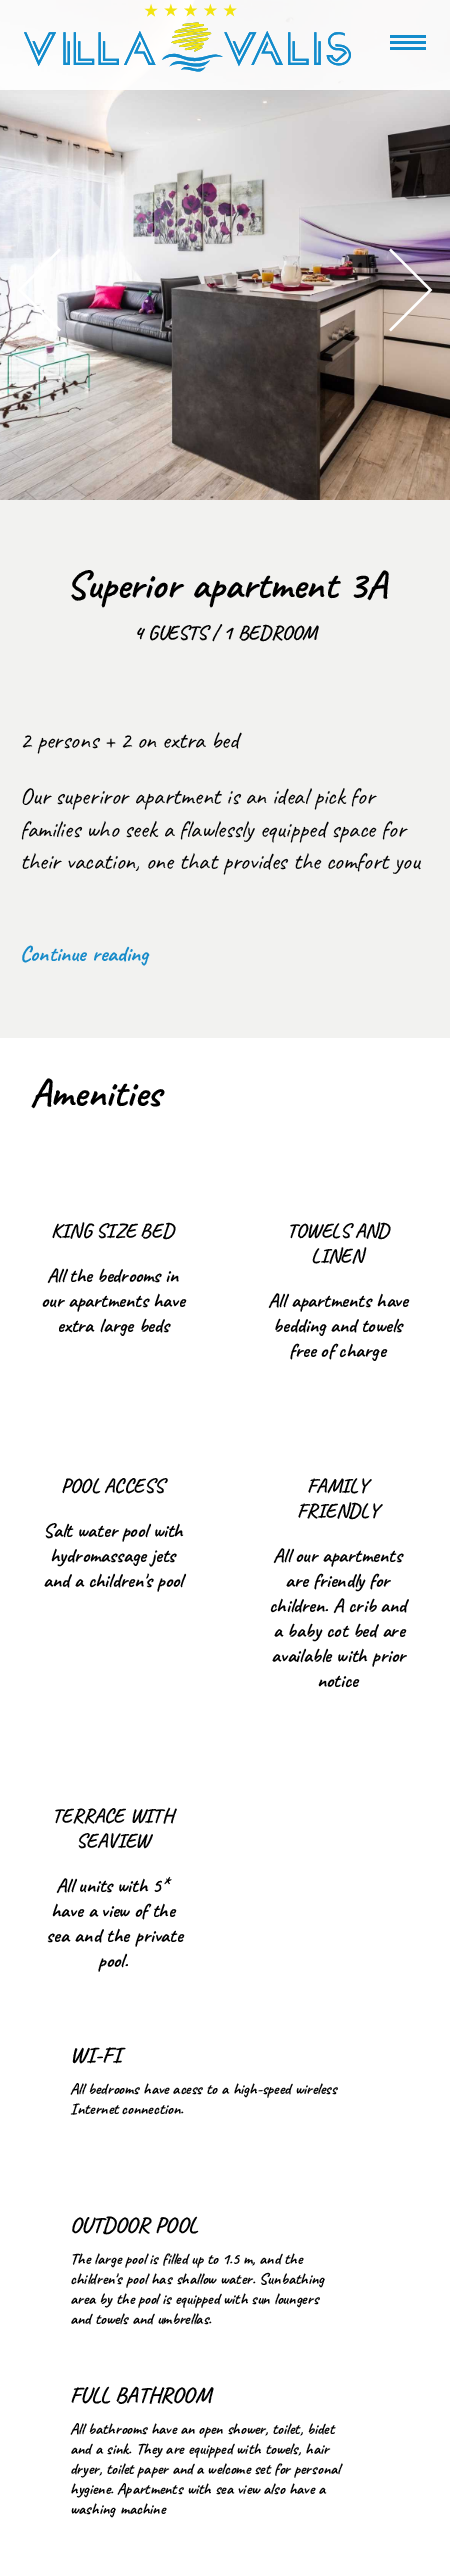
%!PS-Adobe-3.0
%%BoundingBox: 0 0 450 2558
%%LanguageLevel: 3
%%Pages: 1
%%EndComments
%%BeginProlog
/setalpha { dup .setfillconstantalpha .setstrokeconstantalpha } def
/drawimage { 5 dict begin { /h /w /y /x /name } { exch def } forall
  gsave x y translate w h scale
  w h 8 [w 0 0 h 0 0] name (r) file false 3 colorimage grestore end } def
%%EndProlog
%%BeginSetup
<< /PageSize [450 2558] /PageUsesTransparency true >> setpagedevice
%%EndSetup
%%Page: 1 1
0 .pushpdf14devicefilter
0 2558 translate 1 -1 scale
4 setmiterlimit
0.949 0.949 0.941 setrgbcolor
0 0 450 2558 rectfill
(images/2.raw) 0 0 450 500 drawimage
0.9 setalpha
1 setgray
0 0 450 90 rectfill
1 setalpha
(images/1.raw) 24 3 327 69 drawimage
0.075 0.549 0.8 setrgbcolor
390 35 36 3 rectfill
390 41 36 3 rectfill
390 47 36 3 rectfill
1 setgray
2.2 setlinewidth
newpath 60 330.5 moveto 19.5 290 lineto 60 249.5 lineto stroke
newpath 390 249.5 moveto 430.5 290 lineto 390 330.5 lineto stroke
0 1038 450 1520 rectfill
/Caveat-Bold [40 0 0 -40 0 0] selectfont
0 setgray
66 598 moveto 1 0 32 (Superior apartment 3A) widthshow
/Caveat-Bold [20 0 0 -20 0 0] selectfont
134 639 moveto (4 GUESTS) show
212 639 moveto (/) show
223 639 moveto 1 0 32 (1 BEDROOM) widthshow
/Caveat-Regular [24 0 0 -24 0 0] selectfont
20 748 moveto (2 persons + 2 on extra bed) show
20 804 moveto (Our superiror apartment is an ideal pick for) show
20 837 moveto 0.25 0 32 (families who seek a flawlessly equipped space for) widthshow
20 869 moveto 0.25 0 32 (their vacation, one that provides the comfort you) widthshow
/Caveat-Bold [22 0 0 -22 0 0] selectfont
0.09 0.545 0.788 setrgbcolor
20 961 moveto 1 0 32 (Continue reading) widthshow
/Caveat-Bold [40 0 0 -40 0 0] selectfont
0 setgray
30 1106 moveto (Amenities) show
/Caveat-Bold [20 0 0 -20 0 0] selectfont
51 1237 moveto (KING SIZE BED) show
47 1282 moveto (All the bedrooms in) show
41 1307 moveto (our apartments have) show
57 1332 moveto 1 0 32 (extra large beds) widthshow
287 1237 moveto (TOWELS AND) show
311 1262 moveto (LINEN) show
268 1307 moveto 0.5 0 32 (All apartments have) widthshow
273 1332 moveto (bedding and towels) show
289 1357 moveto (free of charge) show
61 1492 moveto (POOL ACCESS) show
43 1537 moveto 0.25 0 32 (Salt water pool with) widthshow
50 1562 moveto (hydromassage jets) show
43 1587 moveto (and a children's pool) show
307 1492 moveto (FAMILY) show
297 1517 moveto (FRIENDLY) show
273 1562 moveto (All our apartments) show
285 1587 moveto (are friendly for) show
269 1612 moveto (children. A crib and) show
273 1637 moveto 0.5 0 32 (a baby cot bed are) widthshow
271 1662 moveto 0.5 0 32 (available with prior) widthshow
317 1687 moveto (notice) show
52 1822 moveto 1 0 32 (TERRACE WITH) widthshow
76 1847 moveto (SEAVIEW) show
56 1892 moveto (All units with 5*) show
51 1917 moveto (have a view of the) show
46 1942 moveto 1 0 32 (sea and the private) widthshow
98 1967 moveto (pool.) show
/Caveat-Bold [22 0 0 -22 0 0] selectfont
70 2062 moveto (WI-FI) show
/Caveat-Bold [16 0 0 -16 0 0] selectfont
70 2094 moveto 0.25 0 32 (All bedrooms have acess to a high-speed wireless) widthshow
70 2114 moveto -1 0 32 (Internet connection.) widthshow
/Caveat-Bold [22 0 0 -22 0 0] selectfont
70 2232 moveto 1 0 32 (OUTDOOR POOL) widthshow
/Caveat-Bold [16 0 0 -16 0 0] selectfont
70 2264 moveto (The large pool is filled up to 1.5 m, and the) show
70 2284 moveto 0.5 0 32 (children's pool has shallow water. Sunbathing) widthshow
70 2304 moveto (area by the pool is equipped with sun loungers) show
70 2324 moveto (and towels and umbrellas.) show
/Caveat-Bold [22 0 0 -22 0 0] selectfont
70 2402 moveto (FULL BATHROOM) show
/Caveat-Bold [16 0 0 -16 0 0] selectfont
70 2434 moveto (All bathrooms have an open shower, toilet, bidet) show
70 2454 moveto 0.25 0 32 (and a sink. They are equipped with towels, hair) widthshow
70 2474 moveto (dryer, toilet paper and a welcome set for personal) show
70 2494 moveto 0.25 0 32 (hygiene. Apartments with sea view also have a) widthshow
70 2514 moveto 1 0 32 (washing machine) widthshow
.poppdf14devicefilter showpage
%%EOF
